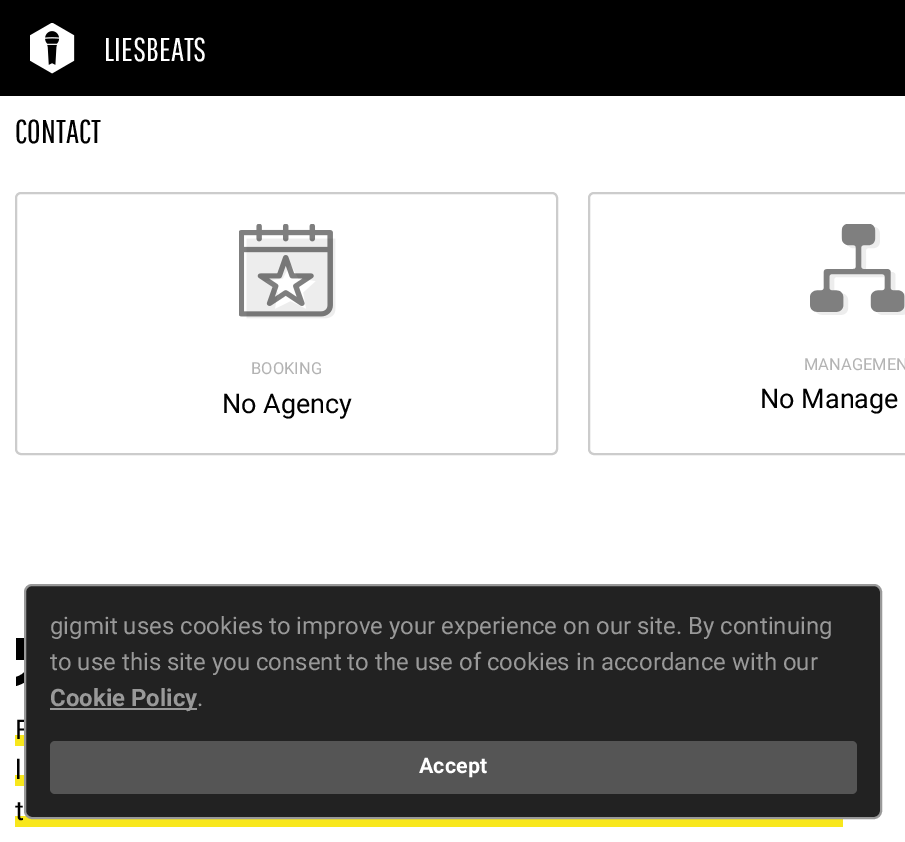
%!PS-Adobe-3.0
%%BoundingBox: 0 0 905 842
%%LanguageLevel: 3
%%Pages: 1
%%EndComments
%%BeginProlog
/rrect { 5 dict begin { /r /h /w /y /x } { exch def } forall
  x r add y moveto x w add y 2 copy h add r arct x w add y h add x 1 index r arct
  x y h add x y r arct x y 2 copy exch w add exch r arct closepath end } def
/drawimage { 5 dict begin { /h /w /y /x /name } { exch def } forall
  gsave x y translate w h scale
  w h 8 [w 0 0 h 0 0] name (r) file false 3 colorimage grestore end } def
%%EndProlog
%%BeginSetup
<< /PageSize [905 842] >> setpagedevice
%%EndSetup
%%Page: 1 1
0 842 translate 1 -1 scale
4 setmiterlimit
1 setgray
0 0 905 842 rectfill
0 setgray
0 0 905 96 rectfill
(images/1.raw) 30 23 45 51 drawimage
0.8 setgray
2 setlinewidth
16 193 541 261 5 rrect stroke
(images/2.raw) 239 224 97 95 drawimage
589 193 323 261 5 rrect stroke
(images/3.raw) 810 224 95 91 drawimage
0 setgray
newpath 16 677 moveto 25 674 28 669 28 660 curveto 16 660 lineto 16 638 lineto 38 638 lineto 38 660 42 678 16 686 curveto closepath 50 677 moveto 59 675 62 669 62 660 curveto 50 660 lineto 50 638 lineto 72 638 lineto 72 658 75 680 50 686 curveto closepath eofill
gsave newpath 15 735 moveto 24 735 lineto 24 746 lineto 15 746 lineto closepath clip newpath
<< /ShadingType 2 /ColorSpace /DeviceRGB /Coords [422 714 422 746] /Extend [true true] /Function << /FunctionType 3 /Domain [0 1] /Functions [<< /FunctionType 2 /Domain [0 1] /C0 [1 1 1] /C1 [1 1 1] /N 1 >> << /FunctionType 2 /Domain [0 1] /C0 [0.973 0.906 0.11] /C1 [0.973 0.906 0.11] /N 1 >>] /Bounds [0.66] /Encode [0 1 0 1] >> >> shfill grestore
gsave newpath 15 775 moveto 24 775 lineto 24 786 lineto 15 786 lineto closepath clip newpath
<< /ShadingType 2 /ColorSpace /DeviceRGB /Coords [389 754 389 786] /Extend [true true] /Function << /FunctionType 3 /Domain [0 1] /Functions [<< /FunctionType 2 /Domain [0 1] /C0 [1 1 1] /C1 [1 1 1] /N 1 >> << /FunctionType 2 /Domain [0 1] /C0 [0.973 0.906 0.11] /C1 [0.973 0.906 0.11] /N 1 >>] /Bounds [0.66] /Encode [0 1 0 1] >> >> shfill grestore
gsave newpath 15 816 moveto 843 816 lineto 843 827 lineto 15 827 lineto closepath clip newpath
<< /ShadingType 2 /ColorSpace /DeviceRGB /Coords [429 795 429 827] /Extend [true true] /Function << /FunctionType 3 /Domain [0 1] /Functions [<< /FunctionType 2 /Domain [0 1] /C0 [1 1 1] /C1 [1 1 1] /N 1 >> << /FunctionType 2 /Domain [0 1] /C0 [0.973 0.906 0.11] /C1 [0.973 0.906 0.11] /N 1 >>] /Bounds [0.66] /Encode [0 1 0 1] >> >> shfill grestore
/PathwayGothicOne-Regular [33 0 0 -33 0 0] selectfont
1 setgray
104 61 moveto (LIESBEATS) show
0 setgray
15 143 moveto (CONTACT) show
/Roboto-Regular [16.5 0 0 -16.5 0 0] selectfont
0.702 setgray
251 374 moveto (BOOKING) show
/Roboto-Regular [27 0 0 -27 0 0] selectfont
0 setgray
222 413 moveto (No Agency) show
/Roboto-Regular [16.5 0 0 -16.5 0 0] selectfont
0.702 setgray
804 370 moveto (MANAGEMEN) show
/Roboto-Regular [27 0 0 -27 0 0] selectfont
0 setgray
760 408 moveto (No Manage) show
15 739 moveto (F) show
15 779 moveto (l) show
15 820 moveto (t) show
0.133 setgray
25 585 856 233 7 rrect gsave fill grestore
0.6 setgray
stroke
/Roboto-Regular [24 0 0 -24 0 0] selectfont
50 634 moveto (gigmit uses cookies to improve your experience on our site. By continuing) show
50 670 moveto (to use this site you consent to the use of cookies in accordance with our) show
50 708 147 2 rectfill
/Roboto-Bold [24 0 0 -24 0 0] selectfont
50 706 moveto (Cookie Policy) show
/Roboto-Regular [24 0 0 -24 0 0] selectfont
197 706 moveto (.) show
0.333 setgray
50 741 807 53 5 rrect fill
/Roboto-Bold [21.5 0 0 -21.5 0 0] selectfont
1 setgray
419 773 moveto (Accept) show
showpage
%%EOF
